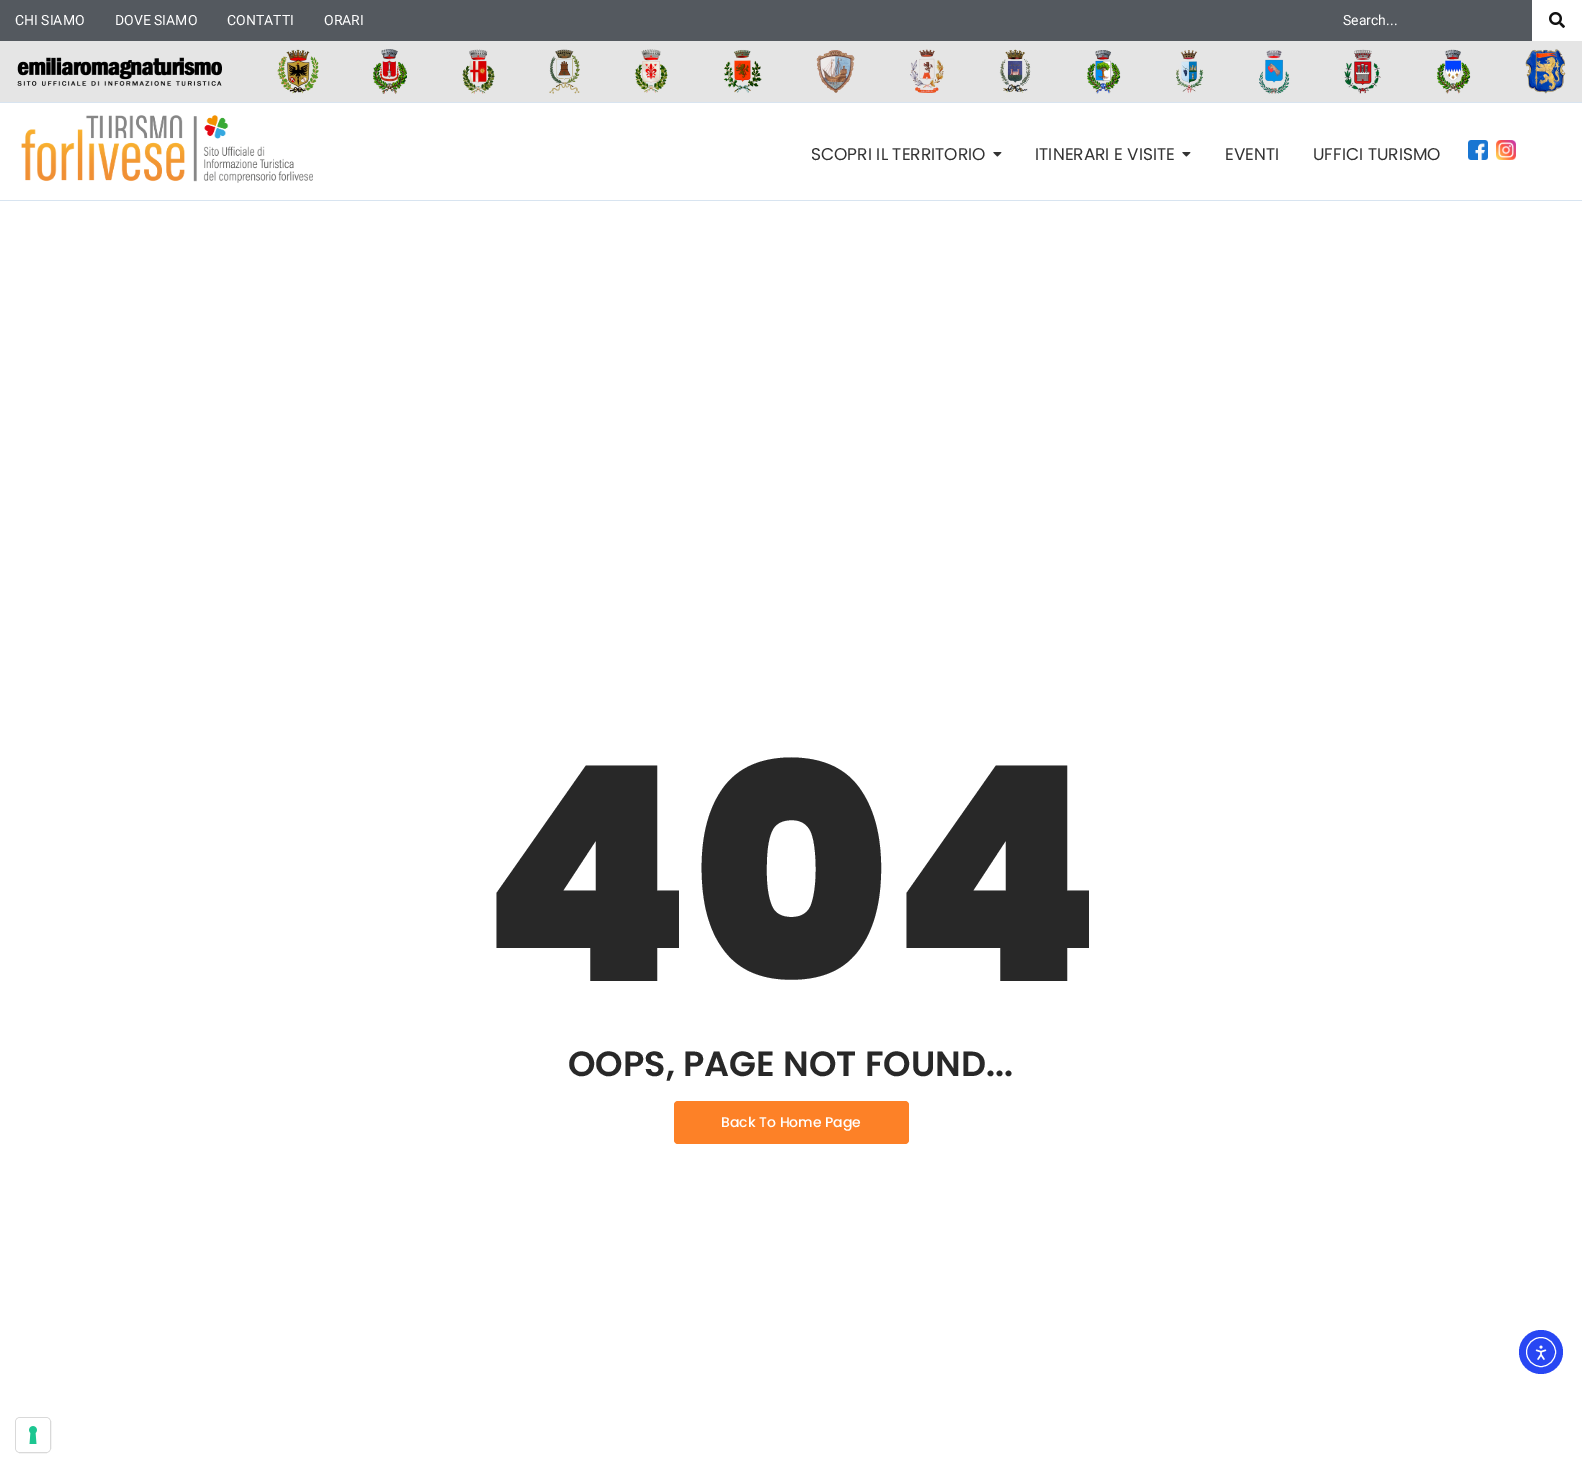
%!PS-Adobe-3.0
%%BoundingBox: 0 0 1582 1468
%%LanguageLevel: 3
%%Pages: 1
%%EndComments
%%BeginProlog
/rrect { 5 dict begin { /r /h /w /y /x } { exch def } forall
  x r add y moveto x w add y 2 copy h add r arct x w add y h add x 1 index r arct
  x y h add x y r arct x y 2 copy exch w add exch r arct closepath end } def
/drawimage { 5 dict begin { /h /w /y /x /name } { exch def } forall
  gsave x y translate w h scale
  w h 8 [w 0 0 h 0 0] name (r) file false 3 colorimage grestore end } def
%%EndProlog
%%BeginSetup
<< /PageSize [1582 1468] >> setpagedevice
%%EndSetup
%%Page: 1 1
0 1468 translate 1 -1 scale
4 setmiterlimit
1 setgray
0 0 1582 1468 rectfill
0.329 0.349 0.373 setrgbcolor
0 0 1532 41 rectfill
(images/1.raw) 1549 12 16 16 drawimage
0.847 0.894 0.941 setrgbcolor
0 102 1582 1 rectfill
0.898 setgray
0 41 1582 61 rectfill
(images/2.raw) 17 57 205 29 drawimage
(images/3.raw) 277 49 42 45 drawimage
(images/4.raw) 373 49 34 45 drawimage
(images/5.raw) 462 49 33 45 drawimage
(images/6.raw) 549 49 31 45 drawimage
(images/7.raw) 634 49 34 44 drawimage
(images/8.raw) 723 49 39 44 drawimage
(images/9.raw) 816 50 39 43 drawimage
(images/10.raw) 910 49 34 44 drawimage
(images/11.raw) 999 49 32 44 drawimage
(images/12.raw) 1087 50 34 44 drawimage
(images/13.raw) 1176 50 28 43 drawimage
(images/14.raw) 1259 50 31 44 drawimage
(images/15.raw) 1344 49 37 45 drawimage
(images/16.raw) 1436 49 35 45 drawimage
(images/17.raw) 1525 49 41 45 drawimage
0.847 0.894 0.941 setrgbcolor
0 200 1582 1 rectfill
(images/18.raw) 21 115 292 68 drawimage
(images/19.raw) 993 152 9 5 drawimage
(images/19.raw) 1182 152 9 5 drawimage
(images/20.raw) 1468 140 20 20 drawimage
(images/21.raw) 1496 140 20 20 drawimage
0.992 0.506 0.153 setrgbcolor
674 1101 235 43 4 rrect fill
0.157 0.278 0.953 setrgbcolor
newpath 1541 1352 22 0 360 arc closepath fill
1 setgray
newpath 1541 1352 14.5 0 360 arc closepath stroke
(images/22.raw) 1535 1345 12 15 drawimage
0.851 setgray
15.5 1417.5 35 35 4.5 rrect stroke
1 setgray
16 1418 34 34 4 rrect fill
(images/23.raw) 29 1426 8 18 drawimage
/Roboto-Regular [14 0 0 -14 0 0] selectfont
15 25 moveto (CHI SIAMO) show
115 25 moveto (DOVE SIAMO) show
227 25 moveto (CONTATTI) show
324 25 moveto (ORARI) show
1343 25 moveto (Search...) show
/Poppins-Regular [17 0 0 -17 0 0] selectfont
0.2 setgray
811 160 moveto (SCOPRI IL TERRITORIO) show
1035 160 moveto (ITINERARI E VISITE) show
1225 160 moveto (EVENTI) show
1313 160 moveto (UFFICI TURISMO) show
/Poppins-Black [300 0 0 -300 0 0] selectfont
0.157 setgray
481 981 moveto (404) show
/Poppins-SemiBold [35 0 0 -35 0 0] selectfont
568 1076 moveto (OOPS, PAGE NOT FOUND...) show
/Poppins-Medium [14 0 0 -14 0 0] selectfont
1 setgray
721 1127 moveto (Back To Home Page) show
showpage
%%EOF
